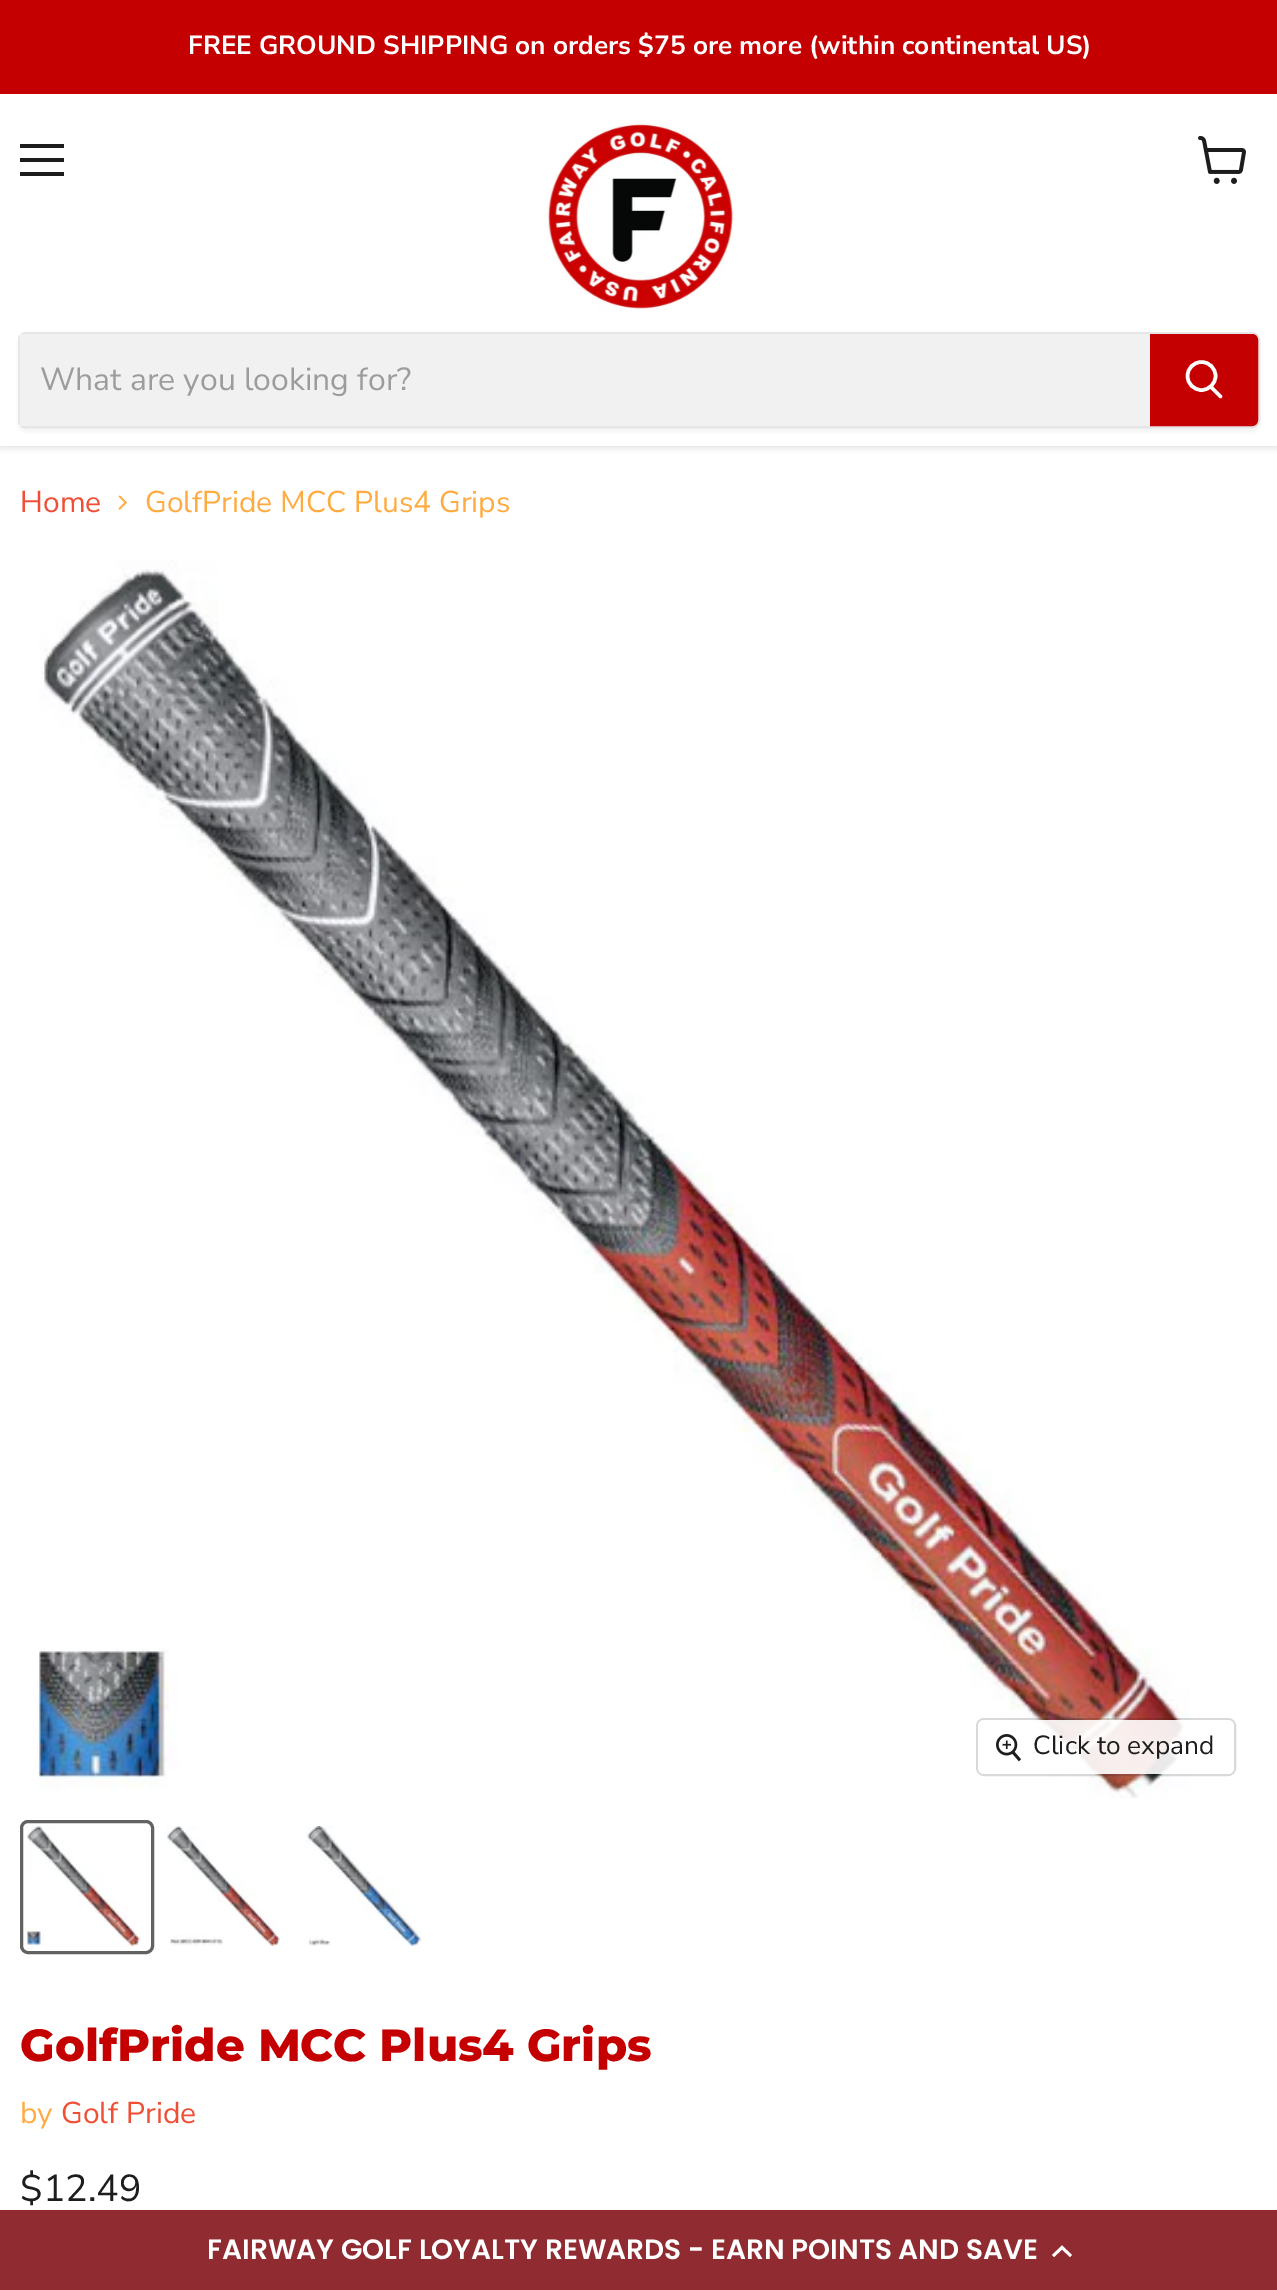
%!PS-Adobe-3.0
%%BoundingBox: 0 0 1277 2290
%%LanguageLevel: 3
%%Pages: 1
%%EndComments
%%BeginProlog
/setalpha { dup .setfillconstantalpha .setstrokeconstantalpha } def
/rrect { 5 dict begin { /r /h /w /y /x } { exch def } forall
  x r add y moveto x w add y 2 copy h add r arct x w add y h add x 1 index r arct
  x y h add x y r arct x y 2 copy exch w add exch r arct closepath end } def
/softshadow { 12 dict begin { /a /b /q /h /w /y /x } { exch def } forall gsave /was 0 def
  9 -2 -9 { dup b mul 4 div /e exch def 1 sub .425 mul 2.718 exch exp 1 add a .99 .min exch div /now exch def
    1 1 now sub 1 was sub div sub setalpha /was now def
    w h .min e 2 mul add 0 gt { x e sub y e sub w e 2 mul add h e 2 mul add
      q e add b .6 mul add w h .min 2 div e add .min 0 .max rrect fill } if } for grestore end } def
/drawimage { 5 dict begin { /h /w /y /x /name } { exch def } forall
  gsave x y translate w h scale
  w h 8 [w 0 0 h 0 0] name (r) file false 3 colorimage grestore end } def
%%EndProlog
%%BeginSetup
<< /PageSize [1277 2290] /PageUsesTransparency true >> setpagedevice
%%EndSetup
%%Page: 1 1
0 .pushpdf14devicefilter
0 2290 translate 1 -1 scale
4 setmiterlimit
1 setgray
0 0 1277 2290 rectfill
gsave
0 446 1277 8 rectclip
0.502 setgray
0 96 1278 352 0 4 0.25 softshadow
grestore
0.773 0 0 setrgbcolor
0 0 1277 94 rectfill
0.114 setgray
20 144 44 4 rectfill
20 158 44 4 rectfill
20 172 44 4 rectfill
(images/1.raw) 1198 136 48 48 drawimage
(images/2.raw) 546 120 188 192 drawimage
gsave
newpath 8 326 moveto 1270 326 lineto 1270 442 lineto 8 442 lineto closepath 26 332 moveto 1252 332 lineto 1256.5 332 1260 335.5 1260 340 curveto 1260 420 lineto 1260 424.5 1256.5 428 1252 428 curveto 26 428 lineto 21.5 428 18 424.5 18 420 curveto 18 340 lineto 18 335.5 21.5 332 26 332 curveto closepath eoclip newpath
0.502 setgray
18 336 1242 96 8 3 0.11 softshadow
grestore
0.2 setalpha
0.502 setgray
2 setlinewidth
19 333 1240 94 7 rrect stroke
1 setalpha
0.945 setgray
20 334 1130 92 rectfill
0.773 0 0 setrgbcolor
newpath 1151 335 moveto 1252 335 lineto 1255 335 1257 337 1257 340 curveto 1257 420 lineto 1257 423 1255 425 1252 425 curveto 1151 425 lineto closepath gsave fill grestore
stroke
1 setgray
3.5 setlinewidth
1 setlinecap
newpath 1220.5 396.5 moveto 1211 387 lineto stroke
0 setlinecap
newpath 1201.5 376 14 0 360 arc closepath stroke
(images/3.raw) 118 495 10 15 drawimage
(images/4.raw) 37 560 1153 1238 drawimage
0.15 setalpha
0 setgray
2 setlinewidth
977 1719 258 56 7 rrect stroke
0.9 setalpha
1 setgray
978 1720 256 54 6 rrect fill
1 setalpha
(images/5.raw) 996 1734 26 28 drawimage
0.384 setgray
3 setlinewidth
21.5 1821.5 131 131 6.5 rrect stroke
(images/6.raw) 26 1826 115 120 drawimage
(images/7.raw) 166 1826 115 120 drawimage
(images/8.raw) 306 1826 116 120 drawimage
0.565 0.173 0.192 setrgbcolor
0 2210 1277 80 rectfill
1 setgray
newpath 1062 2249.5 moveto 1054 2257 lineto 1052 2255 lineto 1062 2245.5 lineto 1072 2255 lineto 1070 2257 lineto closepath fill
/NunitoSans-Bold [26.25 0 0 -26.25 0 0] selectfont
188 54 moveto (FREE GROUND SHIPPING on orders $75 ore more \(within continental US\)) show
/NunitoSans-Regular [32 0 0 -32 0 0] selectfont
0.612 setgray
40 390 moveto (What are you looking for?) show
/NunitoSans-Regular [30 0 0 -30 0 0] selectfont
0.941 0.31 0.212 setrgbcolor
20 512 moveto (Home) show
1 0.671 0.255 setrgbcolor
145 512 moveto (GolfPride MCC Plus4 Grips) show
/NunitoSans-Regular [26.25 0 0 -26.25 0 0] selectfont
0.114 setgray
1033 1754 moveto (Click to expand) show
/Montserrat-ExtraBold [45 0 0 -45 0 0] selectfont
0.773 0 0 setrgbcolor
20 2061 moveto (GolfPride MCC Plus4 Grips) show
/NunitoSans-Regular [30 0 0 -30 0 0] selectfont
1 0.671 0.255 setrgbcolor
20 2123 moveto (by) show
0.941 0.31 0.212 setrgbcolor
61 2123 moveto (Golf Pride) show
/NunitoSans-Regular [37.5 0 0 -37.5 0 0] selectfont
0.114 setgray
20 2201 moveto ($12.49) show
/Poppins-SemiBold [28 0 0 -28 0 0] selectfont
1 setgray
207 2259 moveto (FAIRWAY GOLF LOYALTY REWARDS - EARN POINTS AND SAVE) show
.poppdf14devicefilter showpage
%%EOF
